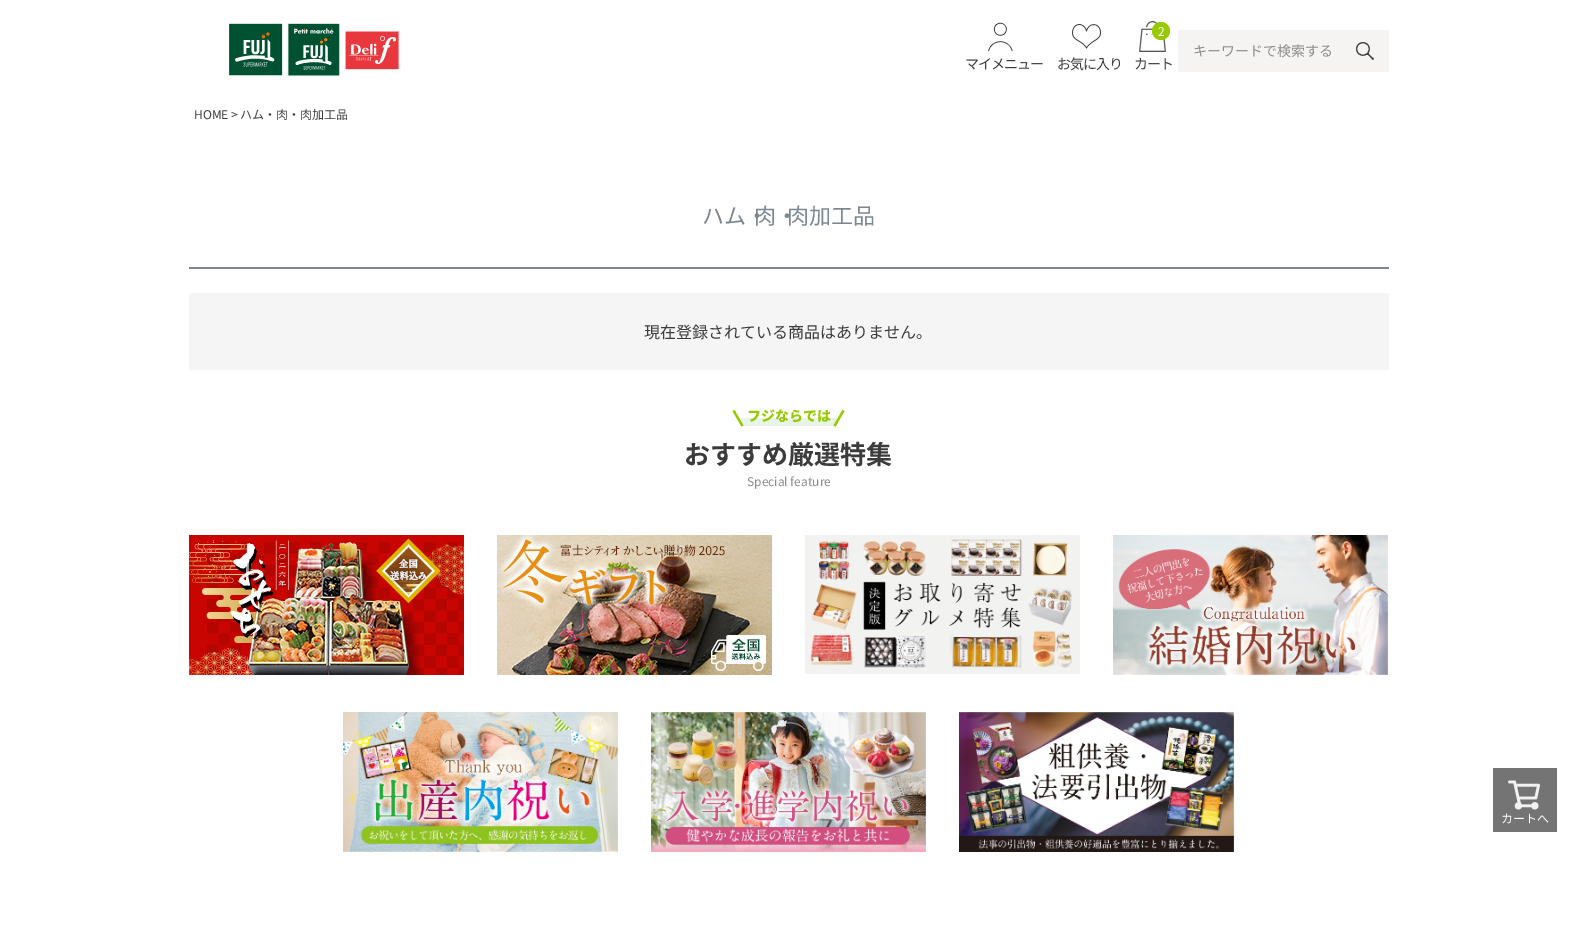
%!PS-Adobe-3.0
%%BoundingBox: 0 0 1577 932
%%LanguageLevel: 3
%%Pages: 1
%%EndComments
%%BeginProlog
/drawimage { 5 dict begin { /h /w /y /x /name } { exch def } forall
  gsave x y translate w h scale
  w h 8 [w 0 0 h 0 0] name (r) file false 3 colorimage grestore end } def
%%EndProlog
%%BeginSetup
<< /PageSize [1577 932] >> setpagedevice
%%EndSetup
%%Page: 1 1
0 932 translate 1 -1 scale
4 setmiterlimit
1 setgray
0 0 1577 932 rectfill
(images/1.raw) 229 23 171 53 drawimage
(images/2.raw) 988 22 25 29 drawimage
(images/3.raw) 1072 24 29 25 drawimage
(images/4.raw) 1139 21 27 31 drawimage
0.592 0.792 0 setrgbcolor
newpath 1161 31 9 0 360 arc closepath fill
0.965 0.957 0.953 setrgbcolor
1178 30 211 42 rectfill
(images/5.raw) 1356 42 18 18 drawimage
0.486 0.529 0.565 setrgbcolor
189 267 1200 2 rectfill
0.961 setgray
189 293 1200 77 rectfill
gsave newpath 741 418 moveto 837 418 lineto 837 426 lineto 741 426 lineto closepath clip newpath
<< /ShadingType 2 /ColorSpace /DeviceRGB /Coords [789 405 789 426] /Extend [true true] /Function << /FunctionType 3 /Domain [0 1] /Functions [<< /FunctionType 2 /Domain [0 1] /C0 [1 1 1] /C1 [1 1 1] /N 1 >> << /FunctionType 2 /Domain [0 1] /C0 [0.914 0.957 0.914] /C1 [0.914 0.957 0.914] /N 1 >>] /Bounds [0.6] /Encode [0 1 0 1] >> >> shfill grestore
0.592 0.792 0 setrgbcolor
newpath 732.5 411 moveto 734.5 410 lineto 743.5 425.5 lineto 741.5 426.5 lineto closepath fill
newpath 842.5 410 moveto 844.5 411 lineto 835.5 426.5 lineto 833.5 425.5 lineto closepath fill
(images/6.raw) 189 535 275 140 drawimage
(images/7.raw) 497 535 275 140 drawimage
(images/8.raw) 805 535 275 139 drawimage
(images/9.raw) 1113 535 275 140 drawimage
(images/10.raw) 343 712 275 140 drawimage
(images/11.raw) 651 712 275 140 drawimage
(images/12.raw) 959 712 275 140 drawimage
0.455 setgray
1493 768 64 64 rectfill
(images/13.raw) 1508 780 32 30 drawimage
/NotoSansJP-Regular [14 0 0 -14 0 0] selectfont
0.235 setgray
965 69 moveto -1 0 (マイメニュー) ashow
1057 69 moveto -1 0 (お気に入り) ashow
/NotoSansJP-Regular [12 0 0 -12 0 0] selectfont
1 setgray
1158 36 moveto (2) show
/NotoSansJP-Regular [14 0 0 -14 0 0] selectfont
0.235 setgray
1134 69 moveto -1 0 (カート) ashow
0.549 setgray
1193 56 moveto (キーワードで検索する) show
/NotoSansJP-Regular [12 0 0 -12 0 0] selectfont
0.235 setgray
194 119 moveto (HOME > ハム・肉・肉加工品) show
/NotoSansJP-Regular [22 0 0 -22 0 0] selectfont
0.486 0.529 0.565 setrgbcolor
702 224 moveto (ハム・) show
754 224 moveto (肉・) show
787 224 moveto (肉加工品) show
/NotoSansJP-Regular [16 0 0 -16 0 0] selectfont
0.235 setgray
644 338 moveto (現在登録されている商品はありません。) show
/NotoSansJP-Black [14 0 0 -14 0 0] selectfont
0.592 0.792 0 setrgbcolor
747 421 moveto (フジならでは) show
/NotoSansJP-Bold [26 0 0 -26 0 0] selectfont
0.235 setgray
684 464 moveto (おすすめ厳選特集) show
/NotoSansJP-Regular [12 0 0 -12 0 0] selectfont
0.549 setgray
747 486 moveto (Special feature) show
1 setgray
1501 823 moveto (カートへ) show
showpage
%%EOF
